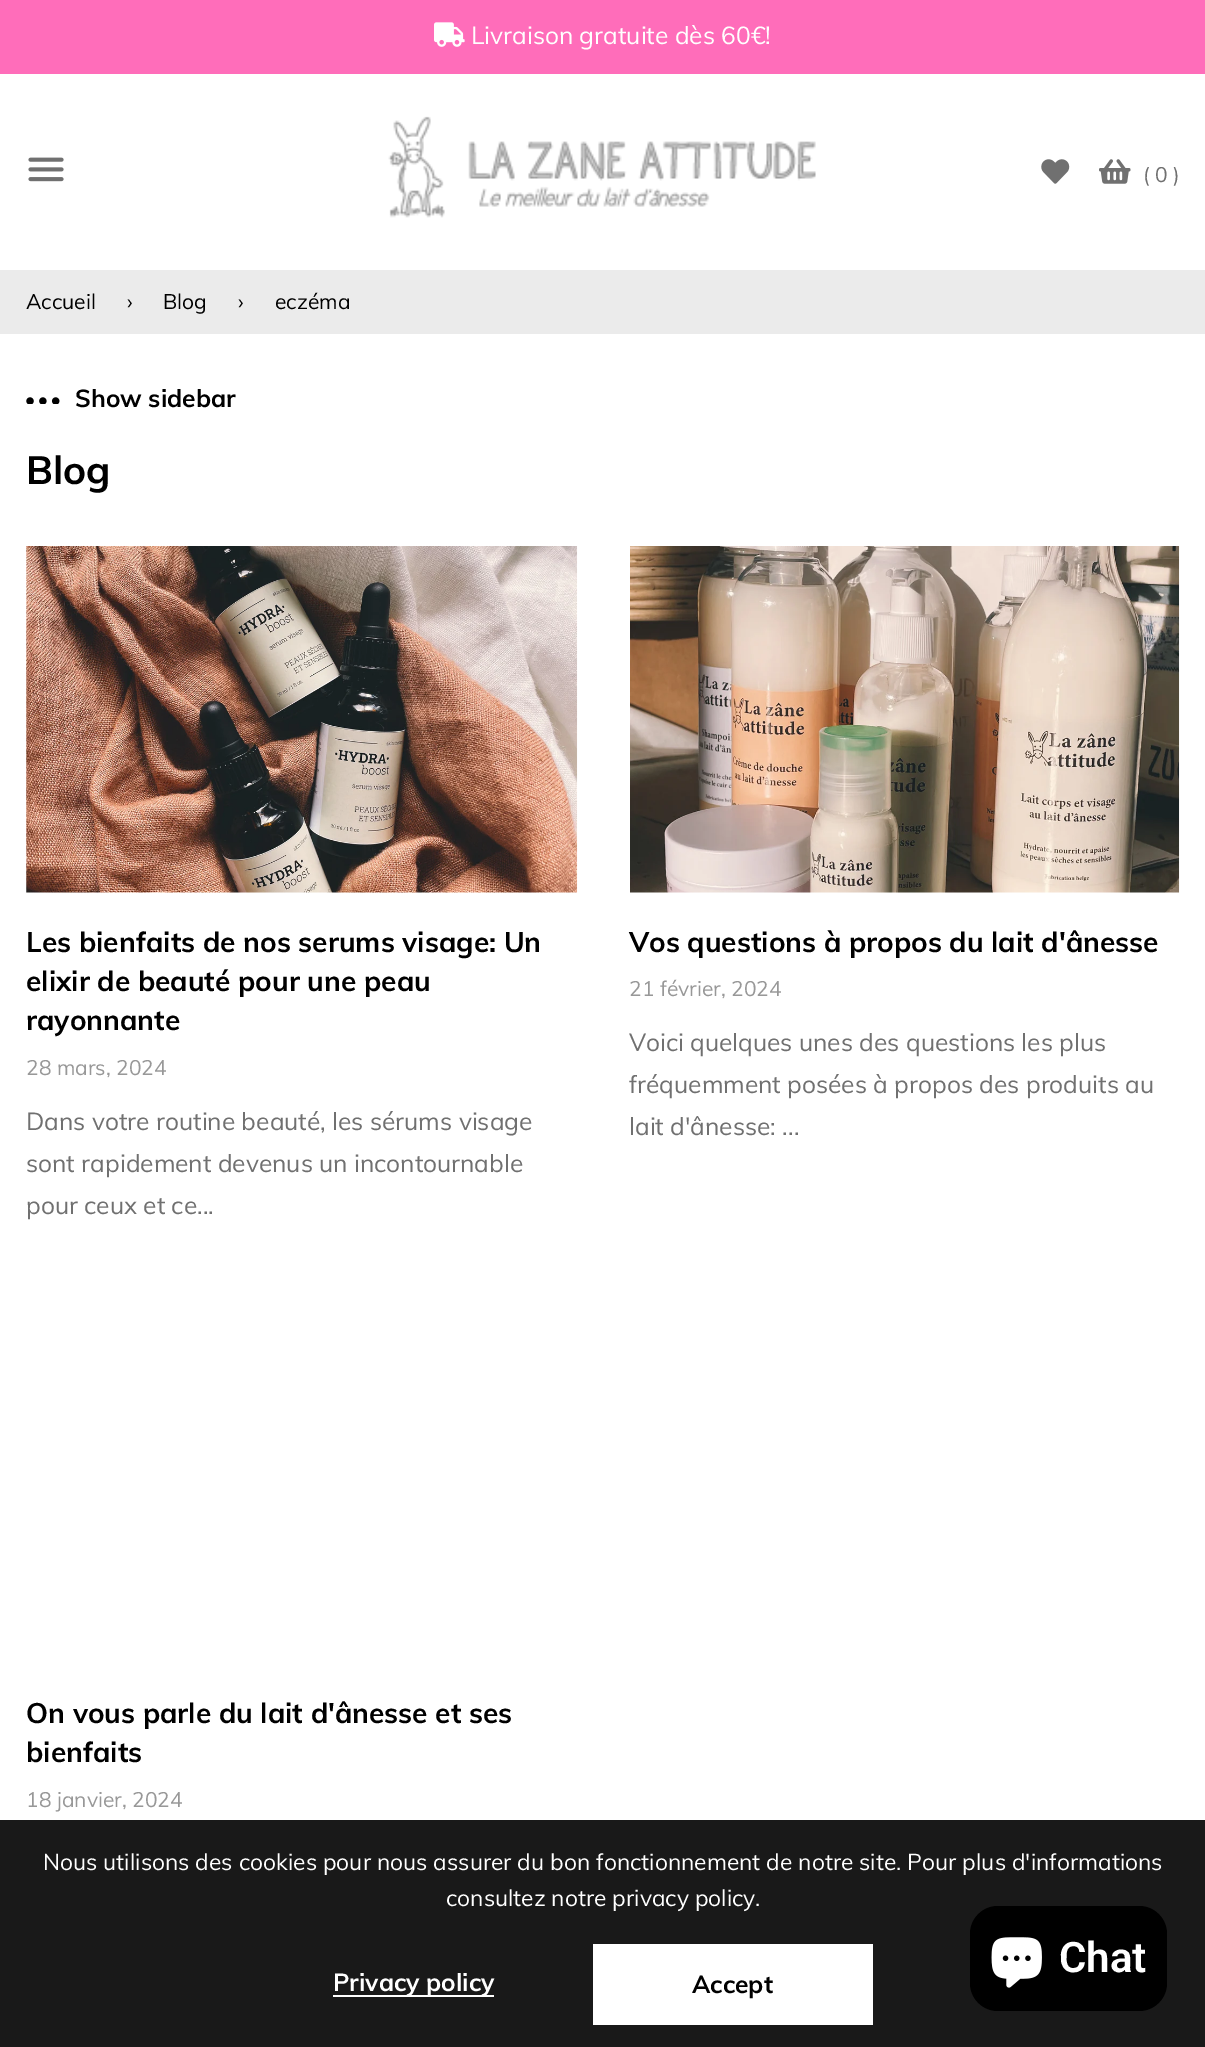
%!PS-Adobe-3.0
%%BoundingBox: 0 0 1205 2047
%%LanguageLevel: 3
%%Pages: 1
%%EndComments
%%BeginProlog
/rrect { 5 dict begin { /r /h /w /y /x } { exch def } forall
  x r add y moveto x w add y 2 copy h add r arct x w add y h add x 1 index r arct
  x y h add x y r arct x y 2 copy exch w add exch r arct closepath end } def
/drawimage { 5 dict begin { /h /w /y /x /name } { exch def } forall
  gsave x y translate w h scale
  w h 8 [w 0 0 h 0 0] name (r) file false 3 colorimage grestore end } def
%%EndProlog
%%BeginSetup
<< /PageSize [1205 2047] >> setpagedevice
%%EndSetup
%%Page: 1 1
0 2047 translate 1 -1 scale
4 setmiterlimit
1 setgray
0 0 1205 2047 rectfill
0.098 setgray
0 1820 1205 227 rectfill
1 0.427 0.729 setrgbcolor
0 0 1205 74 rectfill
(images/1.raw) 434 22 31 25 drawimage
(images/2.raw) 28 157 36 25 drawimage
(images/3.raw) 388 116 428 102 drawimage
(images/4.raw) 1041 159 29 25 drawimage
(images/5.raw) 1099 159 32 25 drawimage
0.922 setgray
0 270 1205 64 rectfill
(images/6.raw) 26 397 34 7 drawimage
(images/7.raw) 26 546 552 347 drawimage
(images/8.raw) 630 546 550 347 drawimage
1 setgray
333 1995 161 2 rectfill
593 1944 280 81 rectfill
0 setgray
970 1906 197 105 28 rrect fill
(images/9.raw) 991 1937 51 51 drawimage
/Muli-Regular [24.5 0 0 -24.5 0 0] selectfont
1 setgray
471 44 moveto (Livraison gratuite dès 60€!) show
/Muli-Regular [21 0 0 -21 0 0] selectfont
0.439 setgray
1143 182 moveto (\( 0 \)) show
0 setgray
26 309 moveto (Accueil) show
127 309 moveto (›) show
163 309 moveto (Blog) show
238 309 moveto (›) show
275 309 moveto (eczéma) show
/Muli-Bold [24.5 0 0 -24.5 0 0] selectfont
75 407 moveto (Show sidebar) show
/Muli-Bold [39 0 0 -39 0 0] selectfont
26 484 moveto (Blog) show
/Muli-Bold [28 0 0 -28 0 0] selectfont
26 952 moveto (Les bienfaits de nos serums visage: Un) show
26 991 moveto (elixir de beauté pour une peau) show
26 1030 moveto (rayonnante) show
/Muli-Regular [21 0 0 -21 0 0] selectfont
0.596 setgray
26 1075 moveto (28 mars, 2024) show
/Muli-Regular [24.5 0 0 -24.5 0 0] selectfont
0.439 setgray
26 1130 moveto (Dans votre routine beauté, les sérums visage) show
26 1172 moveto (sont rapidement devenus un incontournable) show
26 1214 moveto (pour ceux et ce...) show
/Muli-Bold [28 0 0 -28 0 0] selectfont
0 setgray
629 952 moveto (Vos questions à propos du lait d'ânesse) show
/Muli-Regular [21 0 0 -21 0 0] selectfont
0.596 setgray
629 996 moveto (21 février, 2024) show
/Muli-Regular [24.5 0 0 -24.5 0 0] selectfont
0.439 setgray
629 1051 moveto (Voici quelques unes des questions les plus) show
629 1093 moveto (fréquemment posées à propos des produits au) show
629 1135 moveto (lait d'ânesse: ...) show
/Muli-Bold [28 0 0 -28 0 0] selectfont
0 setgray
26 1723 moveto (On vous parle du lait d'ânesse et ses) show
26 1762 moveto (bienfaits) show
/Muli-Regular [21 0 0 -21 0 0] selectfont
0.596 setgray
26 1807 moveto (18 janvier, 2024) show
/Muli-Regular [22.75 0 0 -22.75 0 0] selectfont
1 setgray
43 1870 moveto (Nous utilisons des cookies pour nous assurer du bon fonctionnement de notre site. Pour plus d'informations) show
446 1906 moveto (consultez notre privacy policy.) show
/Muli-Bold [24.5 0 0 -24.5 0 0] selectfont
333 1991 moveto (Privacy policy) show
0 setgray
692 1993 moveto (Accept) show
/Roboto-SemiBold [42 0 0 -42 0 0] selectfont
1 setgray
1059 1972 moveto (Chat) show
showpage
%%EOF
